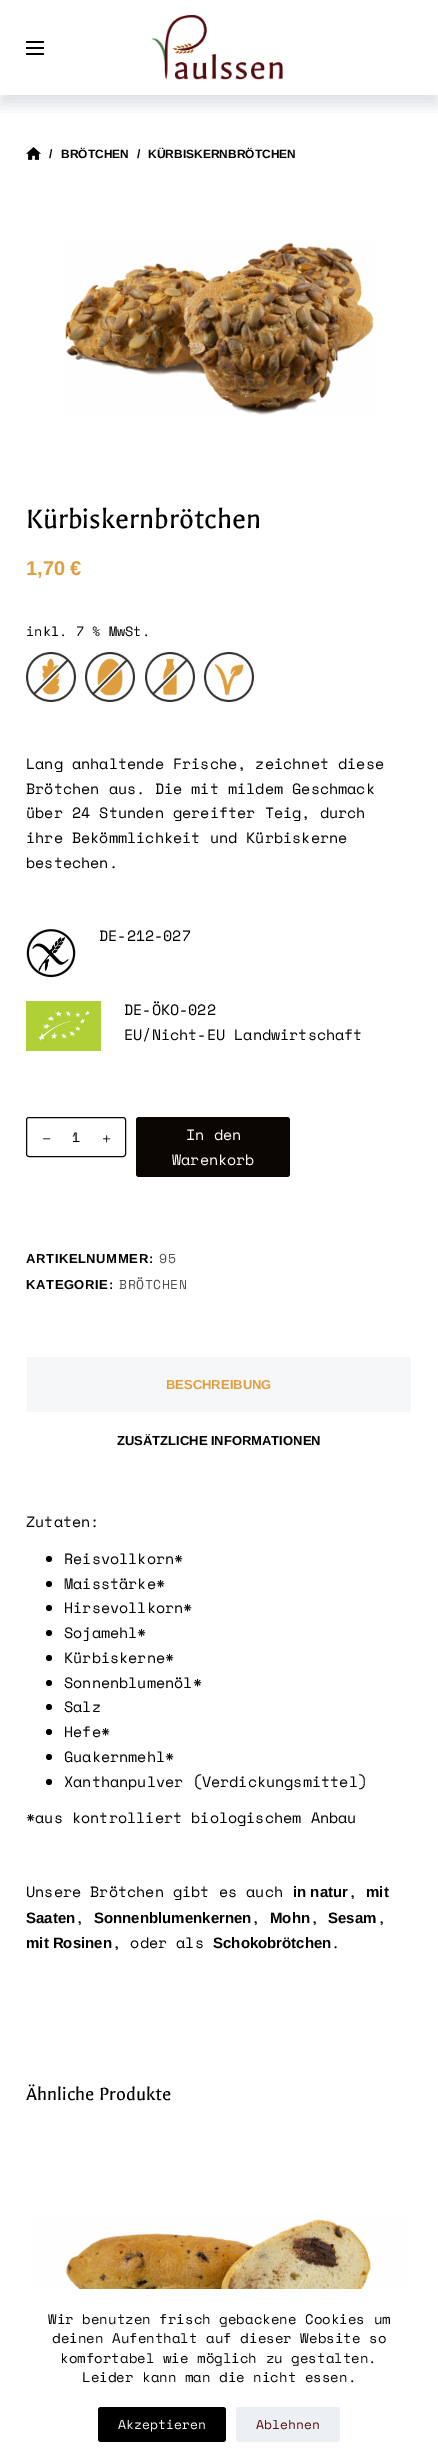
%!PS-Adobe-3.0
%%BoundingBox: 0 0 438 2462
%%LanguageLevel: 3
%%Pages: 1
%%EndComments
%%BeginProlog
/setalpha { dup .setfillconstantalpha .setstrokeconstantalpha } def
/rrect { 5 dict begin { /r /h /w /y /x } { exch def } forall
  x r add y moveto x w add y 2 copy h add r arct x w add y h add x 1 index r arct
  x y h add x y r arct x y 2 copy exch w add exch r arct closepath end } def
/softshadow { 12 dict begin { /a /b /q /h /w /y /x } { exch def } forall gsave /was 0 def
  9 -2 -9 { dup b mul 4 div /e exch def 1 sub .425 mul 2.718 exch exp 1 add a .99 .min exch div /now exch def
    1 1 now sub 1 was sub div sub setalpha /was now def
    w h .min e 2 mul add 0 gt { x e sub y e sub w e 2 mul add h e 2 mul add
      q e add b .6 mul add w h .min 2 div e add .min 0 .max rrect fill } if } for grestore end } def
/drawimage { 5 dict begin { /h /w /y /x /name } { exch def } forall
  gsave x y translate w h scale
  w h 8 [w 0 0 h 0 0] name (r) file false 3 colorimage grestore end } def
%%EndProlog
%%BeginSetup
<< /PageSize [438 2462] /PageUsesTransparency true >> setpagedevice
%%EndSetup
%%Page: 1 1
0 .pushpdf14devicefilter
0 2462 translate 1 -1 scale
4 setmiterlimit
1 setgray
0 0 438 2462 rectfill
gsave
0 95 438 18 rectclip
0.173 0.243 0.314 setrgbcolor
0 10 438 95 0 7 0.15 softshadow
grestore
0 setgray
26 41 18 2 1 rrect fill
26 47 18 2 1 rrect fill
26 53 18 2 1 rrect fill
(images/1.raw) 152 15 131 65 drawimage
(images/2.raw) 26 147 15 13 drawimage
(images/3.raw) 65 242 309 173 drawimage
(images/4.raw) 26 652 50 50 drawimage
(images/5.raw) 85 652 50 50 drawimage
(images/6.raw) 145 652 50 50 drawimage
(images/7.raw) 204 652 50 50 drawimage
(images/8.raw) 26 929 50 49 drawimage
(images/9.raw) 26 1001 75 50 drawimage
0.039 0.02 0 setrgbcolor
26.5 1117.5 99 39 2.5 rrect stroke
(images/10.raw) 43 1138 8 2 drawimage
(images/11.raw) 103 1135 8 8 drawimage
136 1117 154 60 3 rrect fill
0.965 0.969 0.976 setrgbcolor
27 1357 384 55 rectfill
0 setgray
newpath 49 1559 3 0 360 arc closepath fill
newpath 49 1584 3 0 360 arc closepath fill
newpath 49 1608 3 0 360 arc closepath fill
newpath 49 1633 3 0 360 arc closepath fill
newpath 49 1658 3 0 360 arc closepath fill
newpath 49 1683 3 0 360 arc closepath fill
newpath 49 1707 3 0 360 arc closepath fill
newpath 49 1732 3 0 360 arc closepath fill
newpath 49 1757 3 0 360 arc closepath fill
newpath 49 1782 3 0 360 arc closepath fill
(images/12.raw) 28 2219 382 70 drawimage
98 2407 128 35 3 rrect fill
0.925 0.937 0.953 setrgbcolor
236 2407 104 35 3 rrect fill
/LiberationSans-Bold [12 0 0 -12 0 0] selectfont
0 setgray
49 158 moveto (/) show
61 158 moveto (BRÖTCHEN) show
137 158 moveto (/) show
148 158 moveto (KÜRBISKERNBRÖTCHEN) show
/Galdeano-Regular [30 0 0 -30 0 0] selectfont
26 528 moveto (Kürbiskernbrötchen) show
/LiberationSans-Bold [20 0 0 -20 0 0] selectfont
0.878 0.624 0.243 setrgbcolor
26 575 moveto (1,70 €) show
/SpaceMono-Regular [13.5 0 0 -13.5 0 0] selectfont
0 setgray
26 636 moveto (inkl. 7 % MwSt.) show
/SpaceMono-Regular [15 0 0 -15 0 0] selectfont
26 769 moveto (Lang anhaltende Frische, zeichnet diese) show
26 794 moveto (Brötchen aus. Die mit mildem Geschmack) show
26 818 moveto (über 24 Stunden gereifter Teig, durch) show
26 843 moveto (ihre Bekömmlichkeit und Kürbiskerne) show
26 868 moveto (bestechen.) show
99 941 moveto (DE-212-027) show
124 1015 moveto (DE-ÖKO-022) show
124 1040 moveto (EU/Nicht-EU Landwirtschaft) show
/SpaceMono-Regular [13.5 0 0 -13.5 0 0] selectfont
72 1142 moveto (1) show
/SpaceMono-Regular [15 0 0 -15 0 0] selectfont
1 setgray
186 1140 moveto (In den) show
172 1165 moveto (Warenkorb) show
/LiberationSans-Bold [13 0 0 -13 0 0] selectfont
0 setgray
26 1263 moveto 0.6 0 (ARTIKELNUMMER:) ashow
/SpaceMono-Regular [13 0 0 -13 0 0] selectfont
0.302 setgray
159 1263 moveto 0.6 0 (95) ashow
/LiberationSans-Bold [13 0 0 -13 0 0] selectfont
0 setgray
26 1289 moveto 0.6 0 (KATEGORIE:) ashow
/SpaceMono-Regular [13 0 0 -13 0 0] selectfont
0.302 setgray
119 1289 moveto 0.6 0 (BRÖTCHEN) ashow
/LiberationSans-Bold [13 0 0 -13 0 0] selectfont
0.878 0.624 0.243 setrgbcolor
166 1389 moveto (BESCHREIBUNG) show
0 setgray
117 1445 moveto (ZUSÄTZLICHE INFORMATIONEN) show
/SpaceMono-Regular [15 0 0 -15 0 0] selectfont
26 1527 moveto (Zutaten:) show
64 1564 moveto (Reisvollkorn*) show
64 1589 moveto (Maisstärke*) show
64 1613 moveto (Hirsevollkorn*) show
64 1638 moveto (Sojamehl*) show
64 1663 moveto (Kürbiskerne*) show
64 1688 moveto (Sonnenblumenöl*) show
64 1712 moveto (Salz) show
64 1737 moveto (Hefe*) show
64 1762 moveto (Guakernmehl*) show
64 1787 moveto (Xanthanpulver \(Verdickungsmittel\)) show
26 1823 moveto (*aus kontrolliert biologischem Anbau) show
26 1897 moveto (Unsere Brötchen gibt es auch) show
/LiberationSans-Bold [15 0 0 -15 0 0] selectfont
293 1897 moveto (in natur) show
/SpaceMono-Regular [15 0 0 -15 0 0] selectfont
348 1897 moveto (,) show
/LiberationSans-Bold [15 0 0 -15 0 0] selectfont
366 1897 moveto (mit) show
26 1923 moveto (Saaten) show
/SpaceMono-Regular [15 0 0 -15 0 0] selectfont
75 1923 moveto (,) show
/LiberationSans-Bold [15 0 0 -15 0 0] selectfont
94 1923 moveto (Sonnenblumenkernen) show
/SpaceMono-Regular [15 0 0 -15 0 0] selectfont
251 1923 moveto (,) show
/LiberationSans-Bold [15 0 0 -15 0 0] selectfont
270 1923 moveto (Mohn) show
/SpaceMono-Regular [15 0 0 -15 0 0] selectfont
310 1923 moveto (,) show
/LiberationSans-Bold [15 0 0 -15 0 0] selectfont
328 1923 moveto (Sesam) show
/SpaceMono-Regular [15 0 0 -15 0 0] selectfont
377 1923 moveto (,) show
/LiberationSans-Bold [15 0 0 -15 0 0] selectfont
26 1948 moveto (mit Rosinen) show
/SpaceMono-Regular [15 0 0 -15 0 0] selectfont
112 1948 moveto (, oder als) show
/LiberationSans-Bold [15 0 0 -15 0 0] selectfont
213 1948 moveto (Schokobrötchen) show
/SpaceMono-Regular [15 0 0 -15 0 0] selectfont
331 1948 moveto (.) show
/Galdeano-Regular [20 0 0 -20 0 0] selectfont
26 2100 moveto (Ähnliche Produkte) show
/SpaceMono-Regular [14 0 0 -14 0 0] selectfont
48 2324 moveto (Wir benutzen frisch gebackene Cookies um) show
52 2343 moveto (deinen Aufenthalt auf dieser Website so) show
60 2363 moveto (komfortabel wie möglich zu gestalten.) show
82 2382 moveto (Leider kann man die nicht essen.) show
/SpaceMono-Regular [13 0 0 -13 0 0] selectfont
1 setgray
118 2429 moveto (Akzeptieren) show
0.329 0.043 0.055 setrgbcolor
256 2429 moveto (Ablehnen) show
.poppdf14devicefilter showpage
%%EOF
